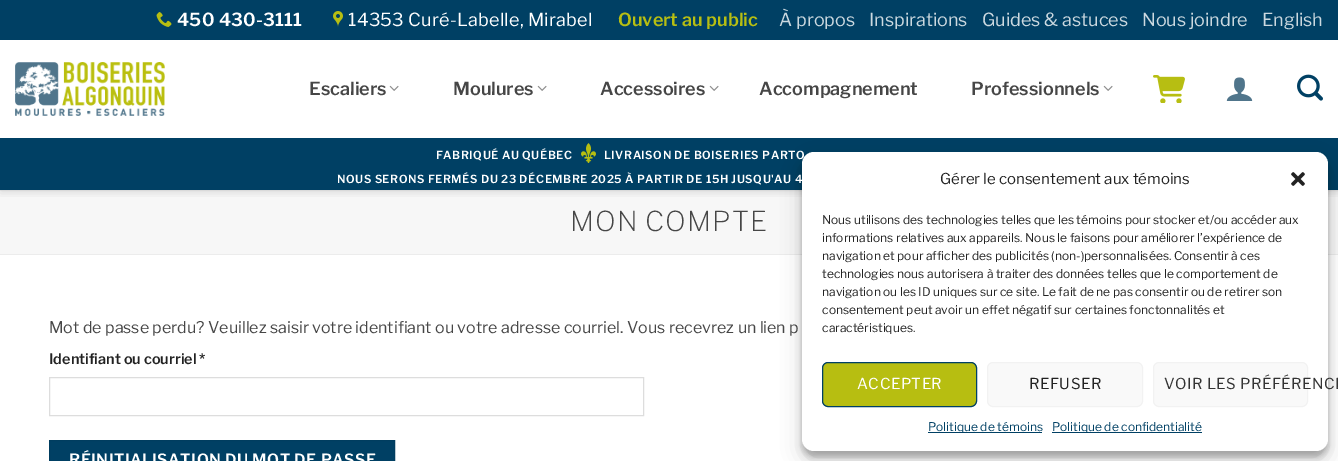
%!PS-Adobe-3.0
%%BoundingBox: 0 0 1338 461
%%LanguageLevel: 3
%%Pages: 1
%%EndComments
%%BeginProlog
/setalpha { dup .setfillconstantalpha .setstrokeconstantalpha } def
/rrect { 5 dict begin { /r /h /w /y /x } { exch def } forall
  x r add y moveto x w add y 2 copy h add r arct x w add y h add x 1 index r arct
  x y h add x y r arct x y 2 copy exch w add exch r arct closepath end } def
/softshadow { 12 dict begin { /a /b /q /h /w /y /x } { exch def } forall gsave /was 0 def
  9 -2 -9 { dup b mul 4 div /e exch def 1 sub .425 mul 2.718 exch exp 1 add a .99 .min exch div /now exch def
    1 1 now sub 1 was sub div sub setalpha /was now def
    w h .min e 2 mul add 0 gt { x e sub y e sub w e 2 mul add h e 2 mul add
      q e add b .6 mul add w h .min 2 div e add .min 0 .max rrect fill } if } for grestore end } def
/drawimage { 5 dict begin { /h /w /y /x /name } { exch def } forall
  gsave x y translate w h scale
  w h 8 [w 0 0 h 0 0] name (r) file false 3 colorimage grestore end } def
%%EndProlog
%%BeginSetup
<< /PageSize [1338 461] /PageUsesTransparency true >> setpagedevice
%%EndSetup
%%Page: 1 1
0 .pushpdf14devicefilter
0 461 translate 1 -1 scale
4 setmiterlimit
1 setgray
0 0 1338 461 rectfill
0.969 setgray
0 191 1338 63 rectfill
0.925 setgray
0 190 1338 1 rectfill
gsave
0 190 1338 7 rectclip
0 setgray
1 1 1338 190 0 5 0.15 softshadow
grestore
0 0.251 0.392 setrgbcolor
0 0 1338 40 rectfill
(images/1.raw) 156 12 16 15 drawimage
(images/2.raw) 333 11 10 16 drawimage
(images/3.raw) 15 62 150 54 drawimage
(images/4.raw) 389 85 10 6 drawimage
(images/4.raw) 537 85 10 6 drawimage
(images/4.raw) 709 85 10 6 drawimage
(images/4.raw) 1103 85 10 6 drawimage
(images/5.raw) 1153 75 32 28 drawimage
(images/6.raw) 1226 77 27 24 drawimage
(images/7.raw) 1297 74 26 27 drawimage
0 138 1338 52 rectfill
(images/8.raw) 581 143 15 20 drawimage
0.925 setgray
0 254 1338 1 rectfill
0.867 setgray
49.5 377.5 594 38 rectstroke
0 0.251 0.392 setrgbcolor
newpath 49.5 440.5 moveto 394.5 440.5 lineto 394.5 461.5 lineto 49.5 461.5 lineto closepath gsave fill grestore
0 0.239 0.373 setrgbcolor
stroke
0 setgray
802 158 526 299 12 3 0.23 softshadow
802 162 526 299 12 10 0.19 softshadow
1 setgray
802 152 526 299 12 rrect fill
(images/9.raw) 1291 172 14 14 drawimage
0.718 0.745 0.067 setrgbcolor
822.5 362.5 154 44 5.5 rrect gsave fill grestore
0 0.251 0.392 setrgbcolor
stroke
0.976 setgray
987.5 362.5 155 44 5.5 rrect gsave fill grestore
0.949 setgray
stroke
0.976 setgray
1153.5 362.5 154 44 5.5 rrect gsave fill grestore
0.949 setgray
stroke
0 0.251 0.392 setrgbcolor
928 432 114 1 rectfill
1052 432 150 1 rectfill
/LibreFranklin-SemiBold [18 0 0 -18 0 0] selectfont
1 setgray
177 26 moveto 0.25 0 (450 430-3111) ashow
/LibreFranklin-Regular [18 0 0 -18 0 0] selectfont
348 26 moveto 0.25 0 (14353 Curé-Labelle, Mirabel) ashow
/LibreFranklin-SemiBold [18 0 0 -18 0 0] selectfont
0.718 0.745 0.071 setrgbcolor
618 26 moveto (Ouvert au public) show
/LibreFranklin-Regular [18 0 0 -18 0 0] selectfont
0.8 0.851 0.878 setrgbcolor
779 26 moveto (À propos) show
869 26 moveto (Inspirations) show
982 26 moveto (Guides & astuces) show
1142 26 moveto (Nous joindre) show
1262 26 moveto (English) show
/LibreFranklin-SemiBold [18 0 0 -18 0 0] selectfont
0.275 setgray
309 95 moveto (Escaliers) show
453 95 moveto (Moulures) show
600 95 moveto (Accessoires) show
759 95 moveto (Accompagnement) show
971 95 moveto (Professionnels) show
/LibreFranklin-SemiBold [11.15 0 0 -11.15 0 0] selectfont
1 setgray
436 159 moveto 0.55 0 (FABRIQUÉ AU QUÉBEC) ashow
604 159 moveto 0.55 0 (LIVRAISON DE BOISERIES PARTO) ashow
337 183 moveto 0.55 0 (NOUS SERONS FERMÉS DU 23 DÉCEMBRE 2025 À PARTIR DE 15H JUSQU'AU 4) ashow
/LibreFranklin-ExtraLight [27.25 0 0 -27.25 0 0] selectfont
0.275 setgray
570 231 moveto 1 0 (MON COMPTE) ashow
/LibreFranklin-Regular [16 0 0 -16 0 0] selectfont
49 333 moveto (Mot de passe perdu? Veuillez saisir votre identifiant ou votre adresse courriel. Vous recevrez un lien p) show
/LibreFranklin-SemiBold [14.4 0 0 -14.4 0 0] selectfont
0.133 setgray
49 364 moveto (Identifiant ou courriel *) show
/LibreFranklin-SemiBold [15.5 0 0 -15.5 0 0] selectfont
1 setgray
69 465 moveto 0.5 0 (RÉINITIALISATION DU MOT DE PASSE) ashow
/LibreFranklin-Regular [15 0 0 -15 0 0] selectfont
0.133 setgray
940 184 moveto (Gérer le consentement aux témoins) show
/LibreFranklin-Regular [12 0 0 -12 0 0] selectfont
822 224 moveto (Nous utilisons des technologies telles que les témoins pour stocker et/ou accéder aux) show
822 242 moveto (informations relatives aux appareils. Nous le faisons pour améliorer l’expérience de) show
822 260 moveto (navigation et pour afficher des publicités \(non-\)personnalisées. Consentir à ces) show
822 278 moveto (technologies nous autorisera à traiter des données telles que le comportement de) show
822 296 moveto (navigation ou les ID uniques sur ce site. Le fait de ne pas consentir ou de retirer son) show
822 314 moveto (consentement peut avoir un effet négatif sur certaines fonctonnalités et) show
822 332 moveto (caractéristiques.) show
/LibreFranklin-Regular [15 0 0 -15 0 0] selectfont
1 setgray
857 389 moveto 0.5 0 (ACCEPTER) ashow
0.133 setgray
1029 389 moveto 0.5 0 (REFUSER) ashow
0.2 setgray
1164 389 moveto 0.5 0 (VOIR LES PRÉFÉRENCE) ashow
/LibreFranklin-Regular [12 0 0 -12 0 0] selectfont
0 0.251 0.392 setrgbcolor
928 431 moveto (Politique de témoins) show
1052 431 moveto (Politique de confidentialité) show
.poppdf14devicefilter showpage
%%EOF
